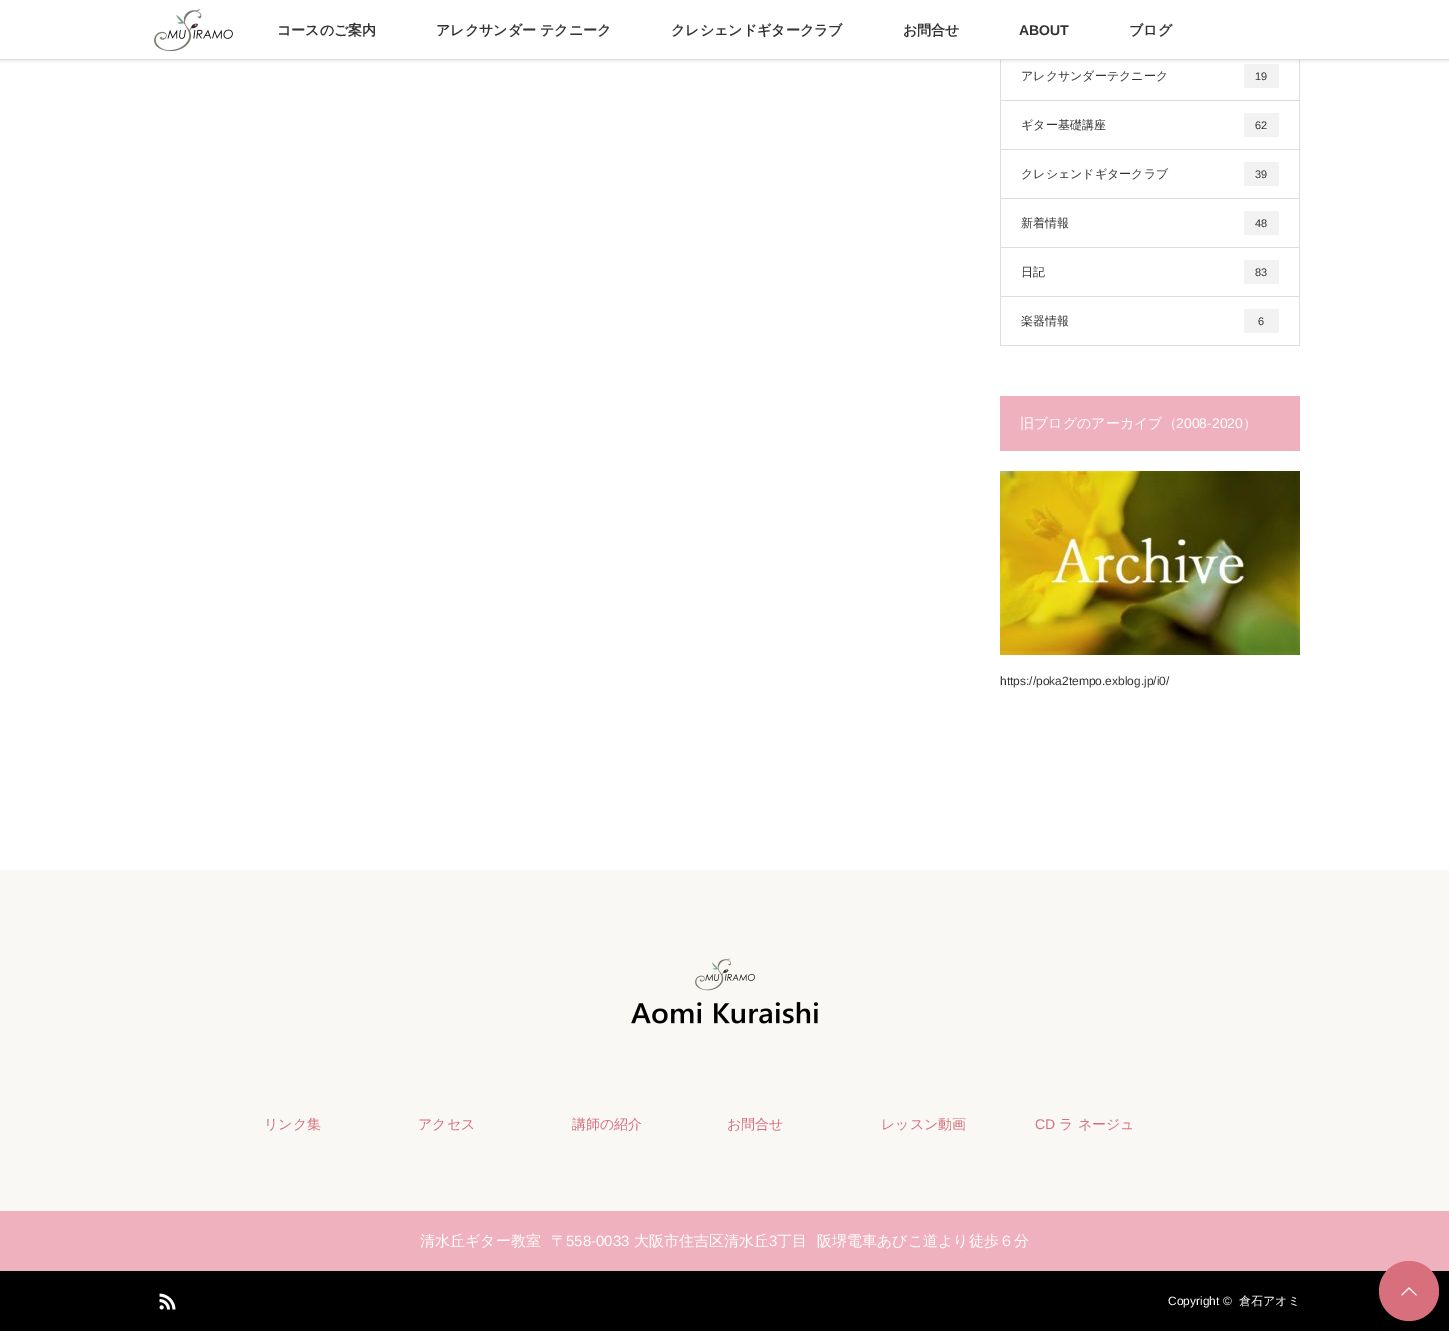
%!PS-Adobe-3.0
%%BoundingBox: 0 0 1449 1331
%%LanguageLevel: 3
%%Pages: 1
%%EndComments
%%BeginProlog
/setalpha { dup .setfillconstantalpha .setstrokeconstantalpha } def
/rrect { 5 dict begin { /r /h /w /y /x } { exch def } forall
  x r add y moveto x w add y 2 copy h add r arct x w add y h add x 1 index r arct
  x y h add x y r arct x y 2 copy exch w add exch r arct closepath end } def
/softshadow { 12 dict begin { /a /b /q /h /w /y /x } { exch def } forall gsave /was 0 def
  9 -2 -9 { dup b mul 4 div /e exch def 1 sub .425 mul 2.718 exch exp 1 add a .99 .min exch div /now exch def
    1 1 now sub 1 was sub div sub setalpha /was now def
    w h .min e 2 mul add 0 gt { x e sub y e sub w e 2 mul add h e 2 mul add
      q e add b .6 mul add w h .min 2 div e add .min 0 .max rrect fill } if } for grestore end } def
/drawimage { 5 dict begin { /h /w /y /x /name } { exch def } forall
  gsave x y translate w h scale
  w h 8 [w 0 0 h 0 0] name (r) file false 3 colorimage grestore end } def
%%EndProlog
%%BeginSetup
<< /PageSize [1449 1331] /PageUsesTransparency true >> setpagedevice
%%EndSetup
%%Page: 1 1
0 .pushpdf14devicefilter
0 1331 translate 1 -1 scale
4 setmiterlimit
1 setgray
0 0 1449 1331 rectfill
0.867 setgray
1299 60 1 286 rectfill
1000 60 1 286 rectfill
0.949 setgray
1244 64 35 24 2 rrect fill
0 setgray
0 1 1449 60 0 1.5 0.1 softshadow
1 setgray
0 0 1449 59 rectfill
0.867 setgray
0 59 1449 1 rectfill
(images/1.raw) 154 8 79 44 drawimage
1001 100 298 1 rectfill
1001 149 298 1 rectfill
0.949 setgray
1244 113 35 24 2 rrect fill
0.867 setgray
1001 198 298 1 rectfill
0.949 setgray
1244 162 35 24 2 rrect fill
0.867 setgray
1001 247 298 1 rectfill
0.949 setgray
1244 211 35 24 2 rrect fill
0.867 setgray
1001 296 298 1 rectfill
0.949 setgray
1244 260 35 24 2 rrect fill
0.867 setgray
1001 345 298 1 rectfill
0.949 setgray
1244 309 35 24 2 rrect fill
0.941 0.694 0.745 setrgbcolor
1000 396 300 55 rectfill
(images/2.raw) 1000 471 300 184 drawimage
0.976 0.973 0.957 setrgbcolor
0 870 1449 341 rectfill
(images/3.raw) 631 958 187 66 drawimage
0.941 0.694 0.745 setrgbcolor
0 1211 1449 60 rectfill
0 setgray
0 1271 1449 60 rectfill
(images/4.raw) 159 1293 17 17 drawimage
0.847 0.435 0.486 setrgbcolor
newpath 1409 1291 30 0 360 arc closepath fill
(images/5.raw) 1401 1287 16 9 drawimage
/WenQuanYiZenHei-Bold [14 0 0 -14 0 0] selectfont
0.2 setgray
277 35 moveto (コースのご案内) show
436 35 moveto (アレクサンダー テクニーク) show
671 35 moveto (クレシェンドギタークラブ) show
903 35 moveto (お問合せ) show
/LiberationSans-Bold [14 0 0 -14 0 0] selectfont
1019 35 moveto (ABOUT) show
/WenQuanYiZenHei-Bold [14 0 0 -14 0 0] selectfont
1129 35 moveto (ブログ) show
/WenQuanYiZenHei-Medium [12 0 0 -12 0 0] selectfont
1021 80 moveto (アレクサンダーテクニーク) show
/LiberationSans-Regular [11 0 0 -11 0 0] selectfont
1255 80 moveto (19) show
/WenQuanYiZenHei-Medium [12 0 0 -12 0 0] selectfont
1021 129 moveto (ギター基礎講座) show
/LiberationSans-Regular [11 0 0 -11 0 0] selectfont
1255 129 moveto (62) show
/WenQuanYiZenHei-Medium [12 0 0 -12 0 0] selectfont
1021 178 moveto (クレシェンドギタークラブ) show
/LiberationSans-Regular [11 0 0 -11 0 0] selectfont
1255 178 moveto (39) show
/WenQuanYiZenHei-Medium [12 0 0 -12 0 0] selectfont
1021 227 moveto (新着情報) show
/LiberationSans-Regular [11 0 0 -11 0 0] selectfont
1255 227 moveto (48) show
/WenQuanYiZenHei-Medium [12 0 0 -12 0 0] selectfont
1021 276 moveto (日記) show
/LiberationSans-Regular [11 0 0 -11 0 0] selectfont
1255 276 moveto (83) show
/WenQuanYiZenHei-Medium [12 0 0 -12 0 0] selectfont
1021 325 moveto (楽器情報) show
/LiberationSans-Regular [11 0 0 -11 0 0] selectfont
1258 325 moveto (6) show
/WenQuanYiZenHei-Medium [14 0 0 -14 0 0] selectfont
1 setgray
1020 428 moveto (旧ブログのアーカイブ（) show
/LiberationSans-Regular [14 0 0 -14 0 0] selectfont
1176 428 moveto (2008-2020) show
/WenQuanYiZenHei-Medium [14 0 0 -14 0 0] selectfont
1243 428 moveto (）) show
/LiberationSans-Regular [12 0 0 -12 0 0] selectfont
0.2 setgray
1000 685 moveto (https://poka2tempo.exblog.jp/i0/) show
/WenQuanYiZenHei-Medium [14 0 0 -14 0 0] selectfont
0.847 0.435 0.486 setrgbcolor
264 1129 moveto (リンク集) show
418 1129 moveto (アクセス) show
572 1129 moveto (講師の紹介) show
727 1129 moveto (お問合せ) show
881 1129 moveto (レッスン動画) show
/LiberationSans-Regular [14 0 0 -14 0 0] selectfont
1035 1129 moveto (CD) show
/WenQuanYiZenHei-Medium [14 0 0 -14 0 0] selectfont
1059 1129 moveto (ラ ネージュ) show
/WenQuanYiZenHei-Medium [15 0 0 -15 0 0] selectfont
1 setgray
420 1246 moveto (清水丘ギター教室) show
551 1246 moveto (〒) show
/LiberationSans-Regular [15 0 0 -15 0 0] selectfont
566 1246 moveto (558-0033) show
/WenQuanYiZenHei-Medium [15 0 0 -15 0 0] selectfont
634 1246 moveto (大阪市住吉区清水丘) show
/LiberationSans-Regular [15 0 0 -15 0 0] selectfont
769 1246 moveto (3) show
/WenQuanYiZenHei-Medium [15 0 0 -15 0 0] selectfont
777 1246 moveto (丁目) show
817 1246 moveto (阪堺電車あびこ道より徒歩６分) show
/LiberationSans-Regular [12 0 0 -12 0 0] selectfont
1168 1305 moveto (Copyright ©) show
/WenQuanYiZenHei-Medium [12 0 0 -12 0 0] selectfont
1239 1305 moveto (倉石アオミ) show
.poppdf14devicefilter showpage
%%EOF
